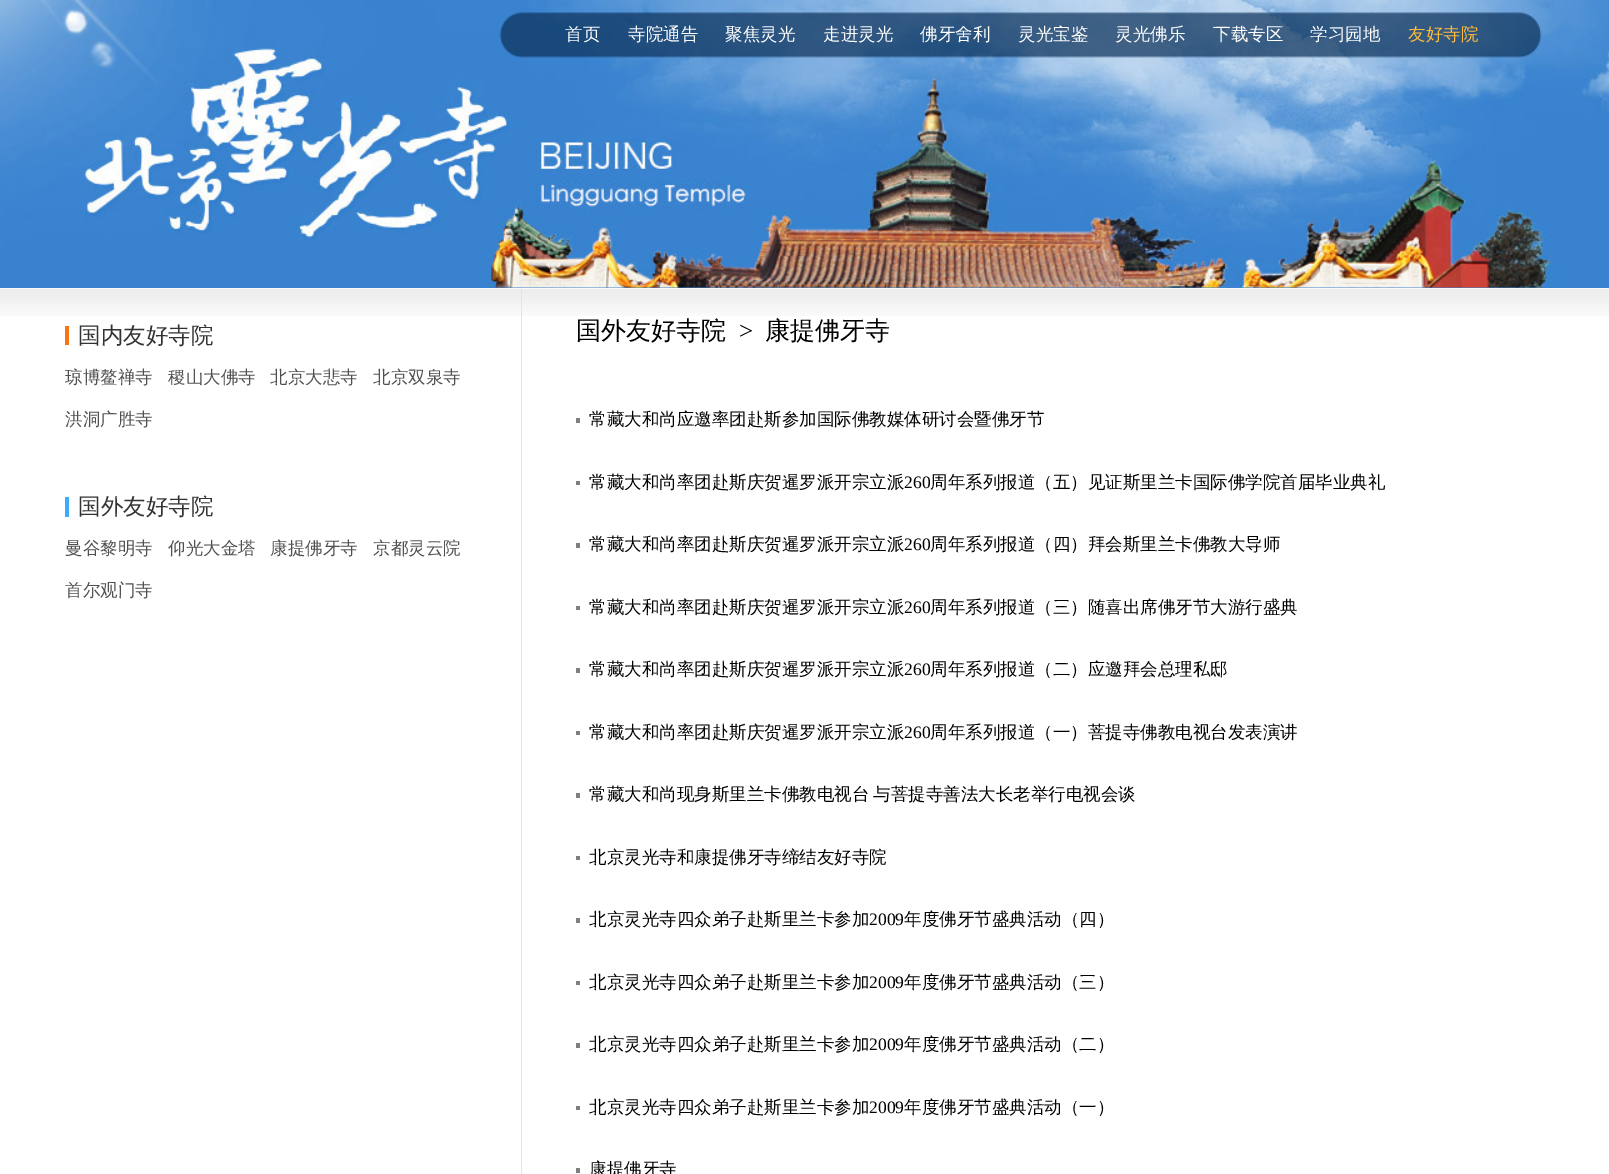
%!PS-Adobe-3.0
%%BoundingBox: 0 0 1609 1174
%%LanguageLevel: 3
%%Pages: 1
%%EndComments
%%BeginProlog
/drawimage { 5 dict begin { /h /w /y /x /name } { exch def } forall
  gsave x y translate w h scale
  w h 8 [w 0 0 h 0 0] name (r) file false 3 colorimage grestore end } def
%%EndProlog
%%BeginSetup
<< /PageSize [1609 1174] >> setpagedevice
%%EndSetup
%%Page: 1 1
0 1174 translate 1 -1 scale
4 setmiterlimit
1 setgray
0 0 1609 1174 rectfill
0.22 0.514 0.812 setrgbcolor
0 287 1609 1 rectfill
(images/1.raw) 0 0 1609 288 drawimage
(images/2.raw) 500 12 1042 46 drawimage
(images/3.raw) 0 288 1609 28 drawimage
0.973 0.455 0.071 setrgbcolor
65 326 4 19 rectfill
0.231 0.671 1 setrgbcolor
65 497 4 20 rectfill
0.894 setgray
521 289 1 885 rectfill
0.498 setgray
576 418 4 5 rectfill
576 481 4 4 rectfill
576 543 4 5 rectfill
576 606 4 4 rectfill
576 668 4 5 rectfill
576 731 4 4 rectfill
576 793 4 5 rectfill
576 856 4 4 rectfill
576 918 4 5 rectfill
576 981 4 4 rectfill
576 1043 4 5 rectfill
576 1106 4 4 rectfill
576 1168 4 5 rectfill
/WenQuanYiZenHei-Medium [17.5 0 0 -17.5 0 0] selectfont
1 setgray
565 40 moveto (首页) show
628 40 moveto (寺院通告) show
725 40 moveto (聚焦灵光) show
823 40 moveto (走进灵光) show
920 40 moveto (佛牙舍利) show
1018 40 moveto (灵光宝鉴) show
1115 40 moveto (灵光佛乐) show
1213 40 moveto (下载专区) show
1310 40 moveto (学习园地) show
1 0.737 0.227 setrgbcolor
1408 40 moveto (友好寺院) show
/WenQuanYiZenHei-Medium [22.5 0 0 -22.5 0 0] selectfont
0.2 setgray
78 343 moveto (国内友好寺院) show
/WenQuanYiZenHei-Medium [17.5 0 0 -17.5 0 0] selectfont
0.314 setgray
65 383 moveto (琼博鳌禅寺) show
168 383 moveto (稷山大佛寺) show
270 383 moveto (北京大悲寺) show
373 383 moveto (北京双泉寺) show
65 425 moveto (洪洞广胜寺) show
/WenQuanYiZenHei-Medium [22.5 0 0 -22.5 0 0] selectfont
0.2 setgray
78 514 moveto (国外友好寺院) show
/WenQuanYiZenHei-Medium [17.5 0 0 -17.5 0 0] selectfont
0.314 setgray
65 554 moveto (曼谷黎明寺) show
168 554 moveto (仰光大金塔) show
270 554 moveto (康提佛牙寺) show
373 554 moveto (京都灵云院) show
65 596 moveto (首尔观门寺) show
/WenQuanYiZenHei-Medium [25 0 0 -25 0 0] selectfont
0 setgray
576 339 moveto (国外友好寺院) show
/LiberationSerif-Regular [25 0 0 -25 0 0] selectfont
739 339 moveto (>) show
/WenQuanYiZenHei-Medium [25 0 0 -25 0 0] selectfont
765 339 moveto (康提佛牙寺) show
/WenQuanYiZenHei-Medium [17.5 0 0 -17.5 0 0] selectfont
589 425 moveto (常藏大和尚应邀率团赴斯参加国际佛教媒体研讨会暨佛牙节) show
589 488 moveto (常藏大和尚率团赴斯庆贺暹罗派开宗立派) show
/LiberationSerif-Regular [17.5 0 0 -17.5 0 0] selectfont
904 488 moveto (260) show
/WenQuanYiZenHei-Medium [17.5 0 0 -17.5 0 0] selectfont
930 488 moveto (周年系列报道（五）见证斯里兰卡国际佛学院首届毕业典礼) show
589 550 moveto (常藏大和尚率团赴斯庆贺暹罗派开宗立派) show
/LiberationSerif-Regular [17.5 0 0 -17.5 0 0] selectfont
904 550 moveto (260) show
/WenQuanYiZenHei-Medium [17.5 0 0 -17.5 0 0] selectfont
930 550 moveto (周年系列报道（四）拜会斯里兰卡佛教大导师) show
589 613 moveto (常藏大和尚率团赴斯庆贺暹罗派开宗立派) show
/LiberationSerif-Regular [17.5 0 0 -17.5 0 0] selectfont
904 613 moveto (260) show
/WenQuanYiZenHei-Medium [17.5 0 0 -17.5 0 0] selectfont
930 613 moveto (周年系列报道（三）随喜出席佛牙节大游行盛典) show
589 675 moveto (常藏大和尚率团赴斯庆贺暹罗派开宗立派) show
/LiberationSerif-Regular [17.5 0 0 -17.5 0 0] selectfont
904 675 moveto (260) show
/WenQuanYiZenHei-Medium [17.5 0 0 -17.5 0 0] selectfont
930 675 moveto (周年系列报道（二）应邀拜会总理私邸) show
589 738 moveto (常藏大和尚率团赴斯庆贺暹罗派开宗立派) show
/LiberationSerif-Regular [17.5 0 0 -17.5 0 0] selectfont
904 738 moveto (260) show
/WenQuanYiZenHei-Medium [17.5 0 0 -17.5 0 0] selectfont
930 738 moveto (周年系列报道（一）菩提寺佛教电视台发表演讲) show
589 800 moveto -1 0 32 (常藏大和尚现身斯里兰卡佛教电视台 与菩提寺善法大长老举行电视会谈) widthshow
589 863 moveto (北京灵光寺和康提佛牙寺缔结友好寺院) show
589 925 moveto (北京灵光寺四众弟子赴斯里兰卡参加) show
/LiberationSerif-Regular [17.5 0 0 -17.5 0 0] selectfont
869 925 moveto (2009) show
/WenQuanYiZenHei-Medium [17.5 0 0 -17.5 0 0] selectfont
904 925 moveto (年度佛牙节盛典活动（四）) show
589 988 moveto (北京灵光寺四众弟子赴斯里兰卡参加) show
/LiberationSerif-Regular [17.5 0 0 -17.5 0 0] selectfont
869 988 moveto (2009) show
/WenQuanYiZenHei-Medium [17.5 0 0 -17.5 0 0] selectfont
904 988 moveto (年度佛牙节盛典活动（三）) show
589 1050 moveto (北京灵光寺四众弟子赴斯里兰卡参加) show
/LiberationSerif-Regular [17.5 0 0 -17.5 0 0] selectfont
869 1050 moveto (2009) show
/WenQuanYiZenHei-Medium [17.5 0 0 -17.5 0 0] selectfont
904 1050 moveto (年度佛牙节盛典活动（二）) show
589 1113 moveto (北京灵光寺四众弟子赴斯里兰卡参加) show
/LiberationSerif-Regular [17.5 0 0 -17.5 0 0] selectfont
869 1113 moveto (2009) show
/WenQuanYiZenHei-Medium [17.5 0 0 -17.5 0 0] selectfont
904 1113 moveto (年度佛牙节盛典活动（一）) show
589 1175 moveto (康提佛牙寺) show
showpage
%%EOF
